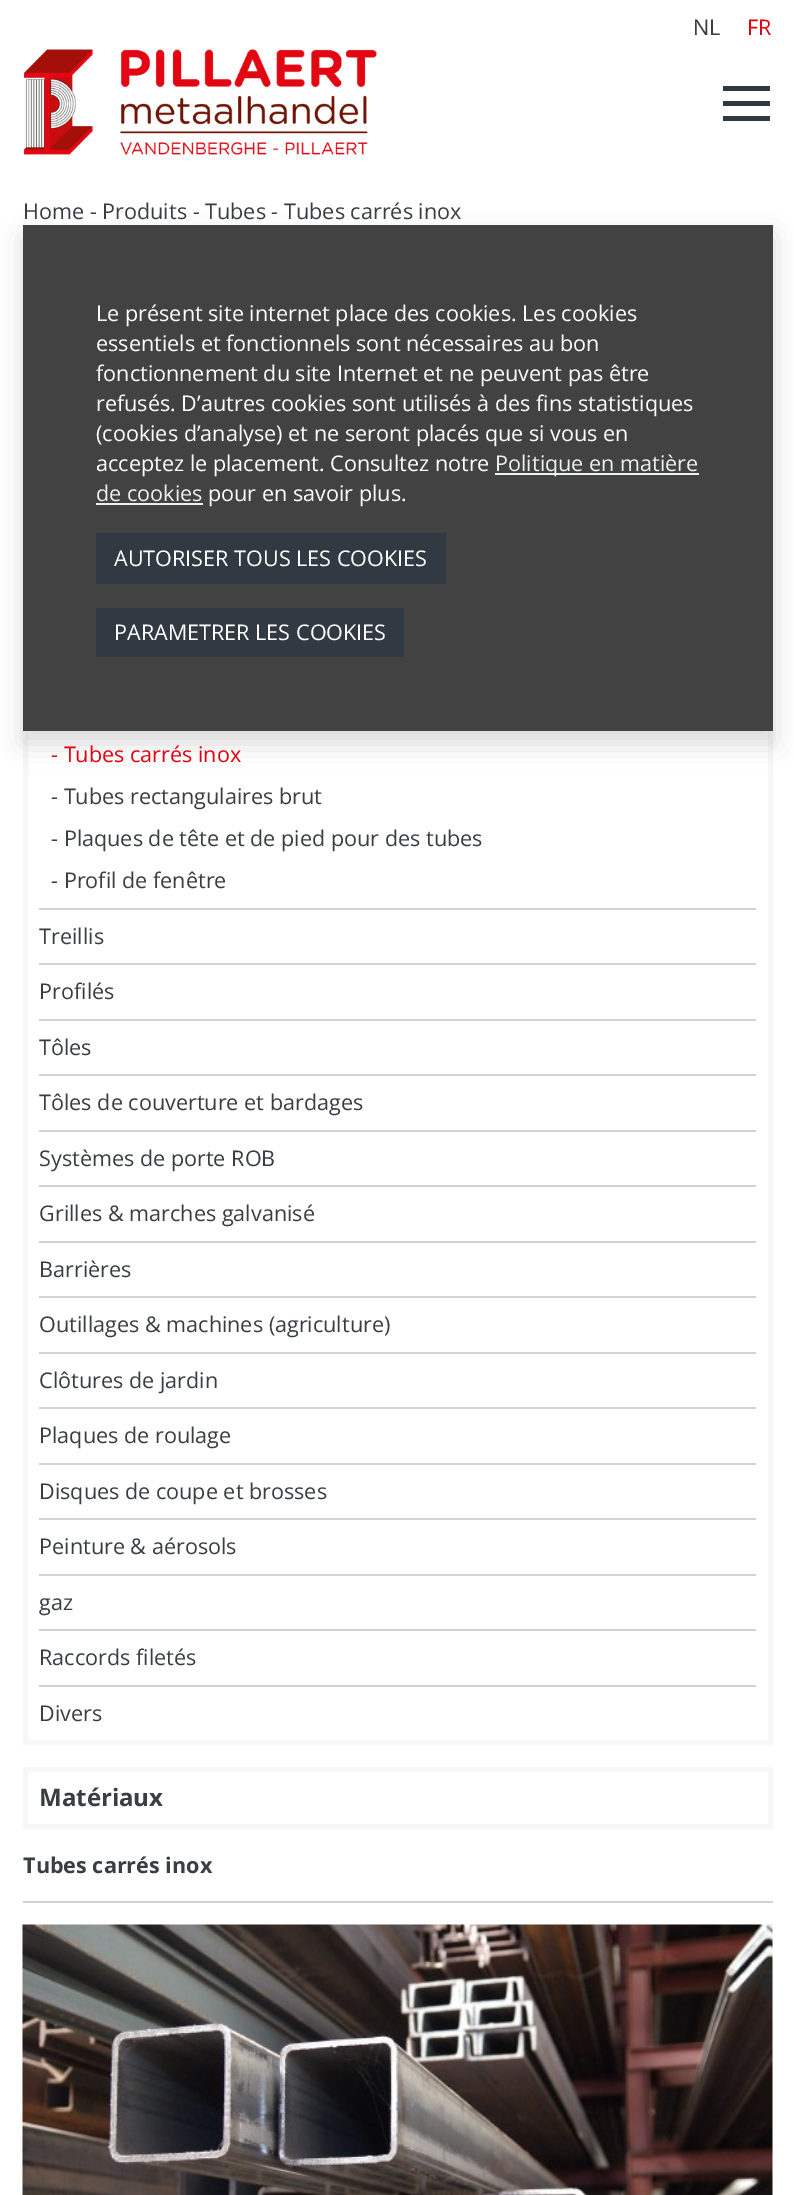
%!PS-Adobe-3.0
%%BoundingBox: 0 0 794 2195
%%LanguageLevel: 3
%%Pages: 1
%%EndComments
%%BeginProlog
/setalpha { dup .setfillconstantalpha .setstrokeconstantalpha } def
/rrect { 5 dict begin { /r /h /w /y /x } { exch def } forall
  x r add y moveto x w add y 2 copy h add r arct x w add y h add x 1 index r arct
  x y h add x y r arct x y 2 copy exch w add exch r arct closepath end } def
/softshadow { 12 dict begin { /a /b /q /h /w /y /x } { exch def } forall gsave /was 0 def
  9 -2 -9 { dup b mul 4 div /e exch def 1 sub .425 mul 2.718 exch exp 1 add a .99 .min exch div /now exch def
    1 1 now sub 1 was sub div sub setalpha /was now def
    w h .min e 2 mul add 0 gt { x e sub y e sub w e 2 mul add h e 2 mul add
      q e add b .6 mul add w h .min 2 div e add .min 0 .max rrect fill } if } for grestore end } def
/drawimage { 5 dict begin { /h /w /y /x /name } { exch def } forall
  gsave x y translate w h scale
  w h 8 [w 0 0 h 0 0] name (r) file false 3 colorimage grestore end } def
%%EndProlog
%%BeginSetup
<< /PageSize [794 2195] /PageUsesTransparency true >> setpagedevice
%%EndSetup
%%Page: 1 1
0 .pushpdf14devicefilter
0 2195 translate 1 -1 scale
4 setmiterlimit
1 setgray
0 0 794 2195 rectfill
(images/1.raw) 24 49 353 106 drawimage
0.192 0.227 0.263 setrgbcolor
723 86 47 5 rectfill
723 101 47 5 rectfill
723 116 47 5 rectfill
0.969 setgray
5 setlinewidth
25.5 335.5 745 1407 rectstroke
0.827 setgray
39 908 717 2 rectfill
39 963 717 2 rectfill
39 1019 717 2 rectfill
39 1074 717 2 rectfill
39 1130 717 2 rectfill
39 1185 717 2 rectfill
39 1241 717 2 rectfill
39 1296 717 2 rectfill
39 1352 717 2 rectfill
39 1407 717 2 rectfill
39 1463 717 2 rectfill
39 1518 717 2 rectfill
39 1574 717 2 rectfill
39 1629 717 2 rectfill
39 1685 717 2 rectfill
0.969 setgray
25.5 1769.5 745 57 rectstroke
0.827 setgray
23 1901 750 2 rectfill
(images/2.raw) 22 1924 751 271 drawimage
0 setgray
23 237 750 506 0 12 0.15 softshadow
0.259 setgray
23 225 750 506 rectfill
0.925 0.941 0.945 setrgbcolor
495 473 204 2 rectfill
96 503 107 2 rectfill
0.192 0.227 0.263 setrgbcolor
96 533 350 51 rectfill
96 608 308 49 rectfill
/OpenSans-Regular [21.6 0 0 -21.6 0 0] selectfont
0.22 0.243 0.259 setrgbcolor
693 35 moveto (NL) show
0.882 0.012 0.059 setrgbcolor
747 35 moveto (FR) show
0.22 0.243 0.259 setrgbcolor
23 219 moveto (Home - Produits - Tubes - Tubes carrés inox) show
0.882 0.012 0.059 setrgbcolor
51 762 moveto (- Tubes carrés inox) show
0.22 0.243 0.259 setrgbcolor
51 804 moveto (- Tubes rectangulaires brut) show
51 846 moveto (- Plaques de tête et de pied pour des tubes) show
51 888 moveto (- Profil de fenêtre) show
39 944 moveto (Treillis) show
39 999 moveto (Profilés) show
39 1055 moveto (Tôles) show
39 1110 moveto (Tôles de couverture et bardages) show
39 1166 moveto (Systèmes de porte ROB) show
39 1221 moveto (Grilles & marches galvanisé) show
39 1277 moveto (Barrières) show
39 1332 moveto (Outillages & machines \(agriculture\)) show
39 1388 moveto (Clôtures de jardin) show
39 1443 moveto (Plaques de roulage) show
39 1499 moveto (Disques de coupe et brosses) show
39 1554 moveto (Peinture & aérosols) show
39 1610 moveto (gaz) show
39 1665 moveto (Raccords filetés) show
39 1721 moveto (Divers) show
/OpenSans-Bold [24 0 0 -24 0 0] selectfont
39 1806 moveto (Matériaux) show
/OpenSans-Bold [21.6 0 0 -21.6 0 0] selectfont
23 1873 moveto (Tubes carrés inox) show
/OpenSans-Regular [21.6 0 0 -21.6 0 0] selectfont
1 setgray
96 321 moveto (Le présent site internet place des cookies. Les cookies) show
96 351 moveto (essentiels et fonctionnels sont nécessaires au bon) show
96 381 moveto (fonctionnement du site Internet et ne peuvent pas être) show
96 411 moveto (refusés. D’autres cookies sont utilisés à des fins) show
578 411 moveto (statistiques) show
96 441 moveto (\(cookies d’analyse\) et ne seront placés que si vous en) show
96 471 moveto (acceptez le placement. Consultez notre) show
0.925 0.941 0.945 setrgbcolor
495 471 moveto (Politique en matière) show
96 501 moveto (de cookies) show
1 setgray
208 501 moveto (pour en savoir plus.) show
114 566 moveto (AUTORISER TOUS LES COOKIES) show
114 640 moveto (PARAMETRER LES COOKIES) show
.poppdf14devicefilter showpage
%%EOF
